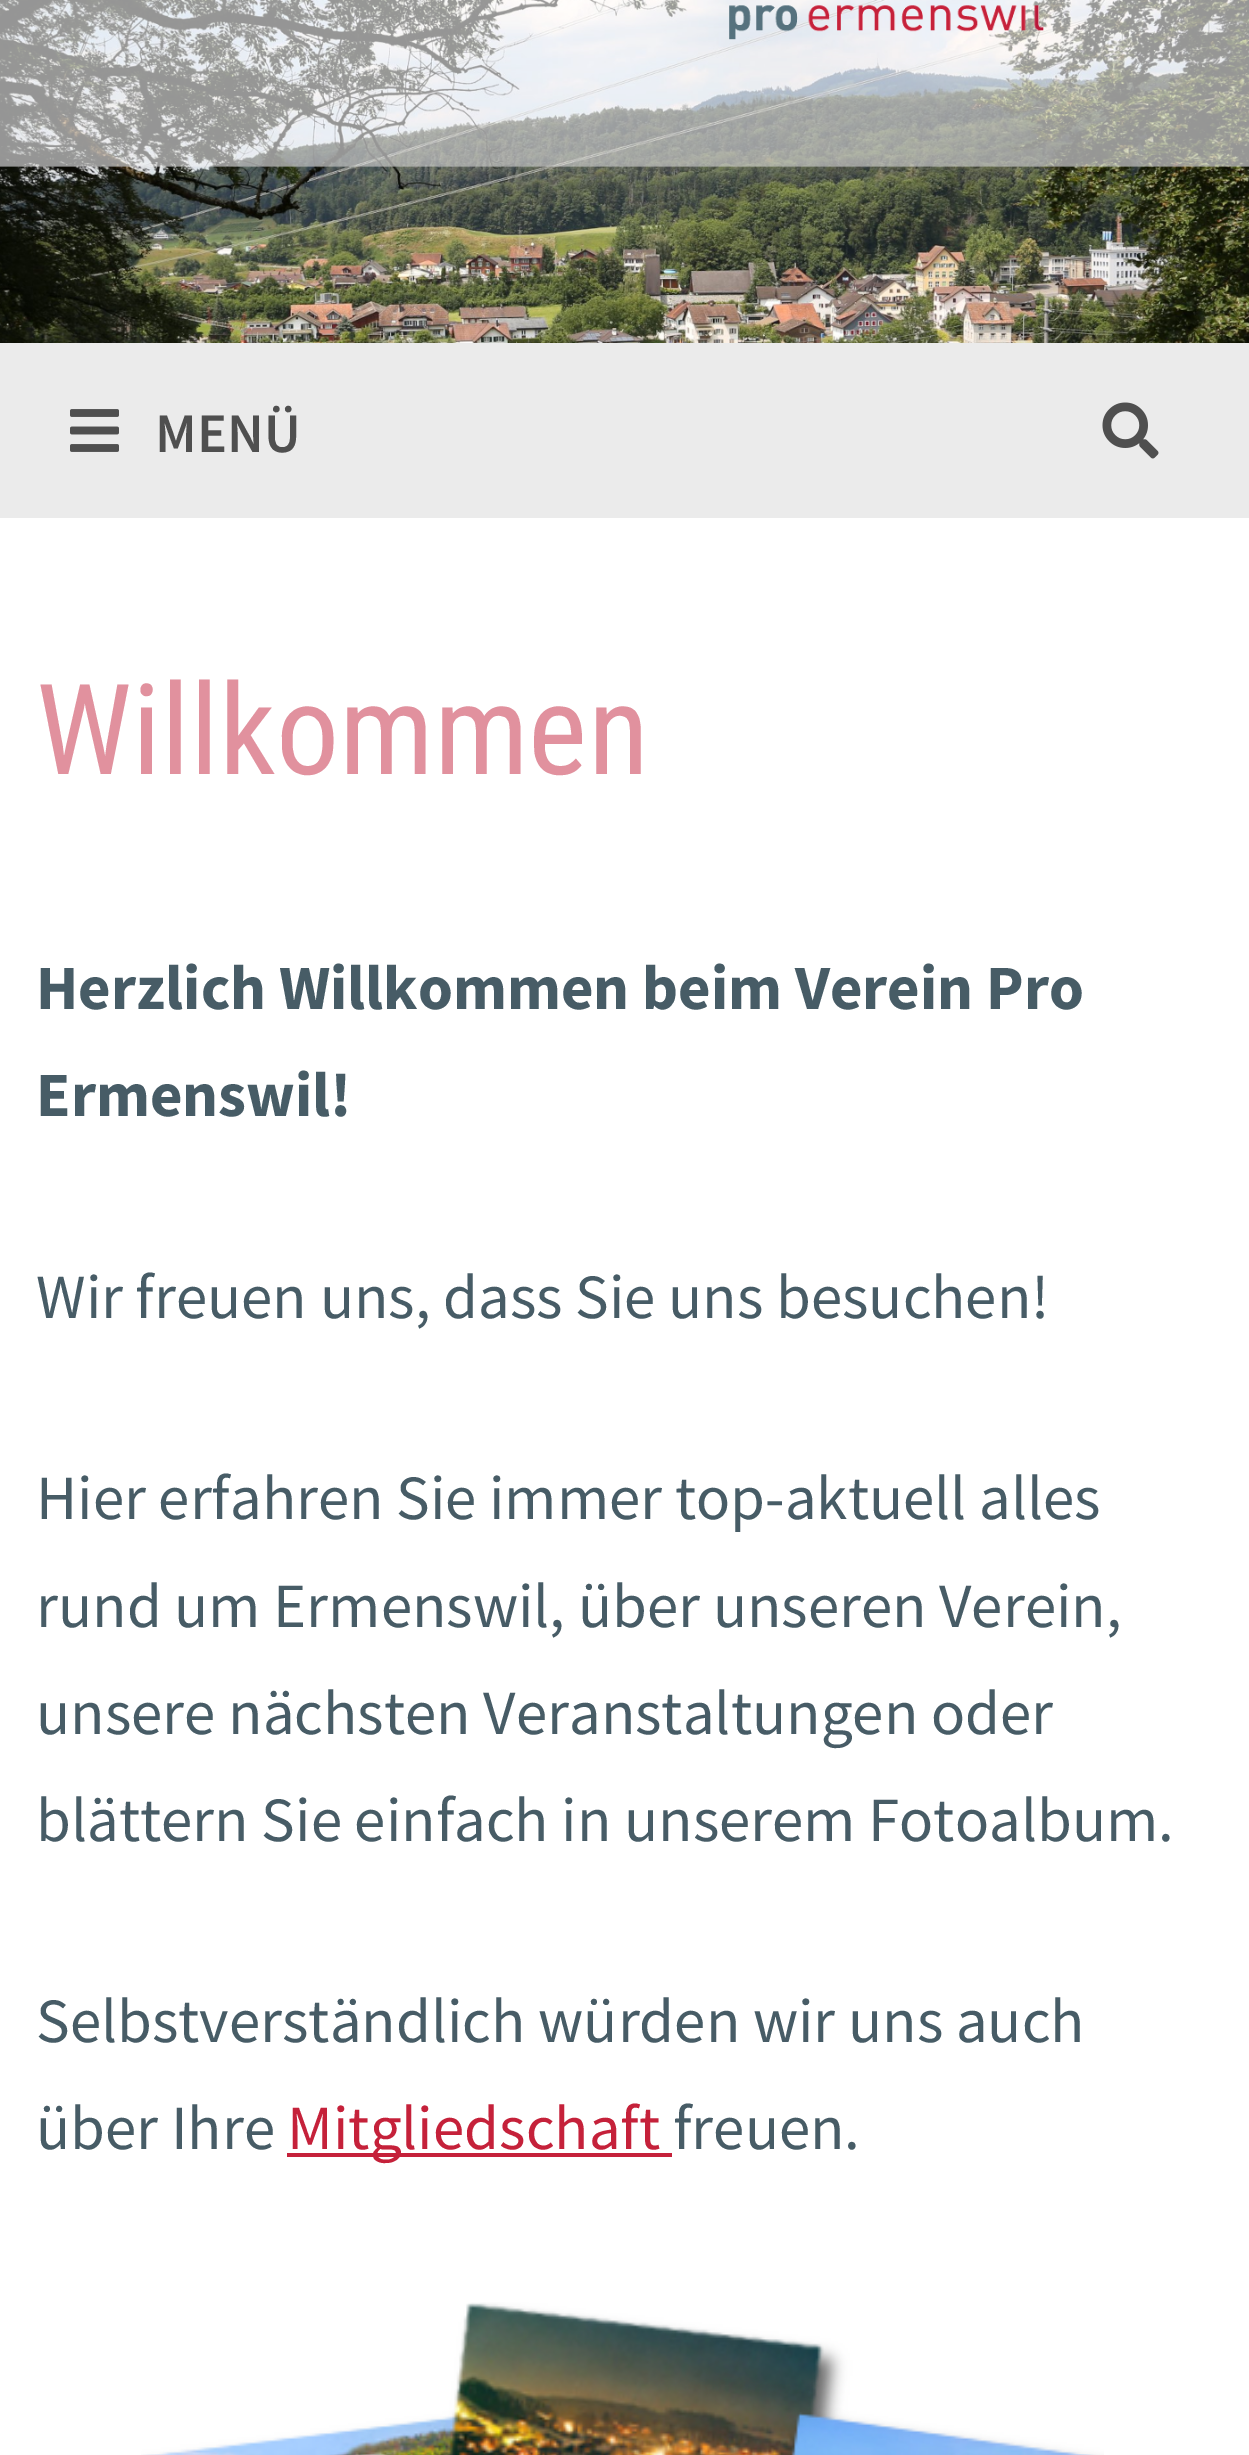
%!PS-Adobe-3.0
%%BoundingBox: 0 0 1249 2455
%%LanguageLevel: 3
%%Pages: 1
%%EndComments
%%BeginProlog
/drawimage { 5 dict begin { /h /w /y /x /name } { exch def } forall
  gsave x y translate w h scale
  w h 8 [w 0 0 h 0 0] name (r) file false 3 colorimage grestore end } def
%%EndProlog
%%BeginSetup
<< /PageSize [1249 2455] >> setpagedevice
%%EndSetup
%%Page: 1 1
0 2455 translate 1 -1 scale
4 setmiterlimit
1 setgray
0 0 1249 2455 rectfill
(images/1.raw) 0 0 1249 343 drawimage
0.922 setgray
0 343 1249 175 rectfill
(images/2.raw) 70 409 49 43 drawimage
(images/3.raw) 1102 402 57 57 drawimage
0.773 0.129 0.227 setrgbcolor
287 2153 385 4 rectfill
(images/4.raw) 141 2302 963 153 drawimage
/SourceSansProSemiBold-SemiBold [56 0 0 -56 0 0] selectfont
0.31 setgray
155 452 moveto (MENÜ) show
/RobotoCondensed-Regular [126 0 0 -126 0 0] selectfont
0.882 0.569 0.62 setrgbcolor
36 774 moveto (Willkommen) show
/SourceSansPro-Bold [63 0 0 -63 0 0] selectfont
0.278 0.361 0.4 setrgbcolor
36 1009 moveto (Herzlich Willkommen beim Verein Pro) show
36 1116 moveto (Ermenswil!) show
/SourceSansPro-Regular [63 0 0 -63 0 0] selectfont
36 1318 moveto (Wir freuen uns, dass Sie uns besuchen!) show
36 1519 moveto (Hier erfahren Sie immer top-aktuell alles) show
36 1627 moveto (rund um Ermenswil, über unseren Verein,) show
36 1734 moveto (unsere nächsten Veranstaltungen oder) show
36 1841 moveto (blättern Sie einfach in unserem Fotoalbum.) show
36 2042 moveto (Selbstverständlich würden wir uns auch) show
36 2149 moveto (über Ihre) show
0.773 0.129 0.227 setrgbcolor
287 2149 moveto (Mitgliedschaft) show
0.278 0.361 0.4 setrgbcolor
673 2149 moveto (freuen.) show
showpage
%%EOF
